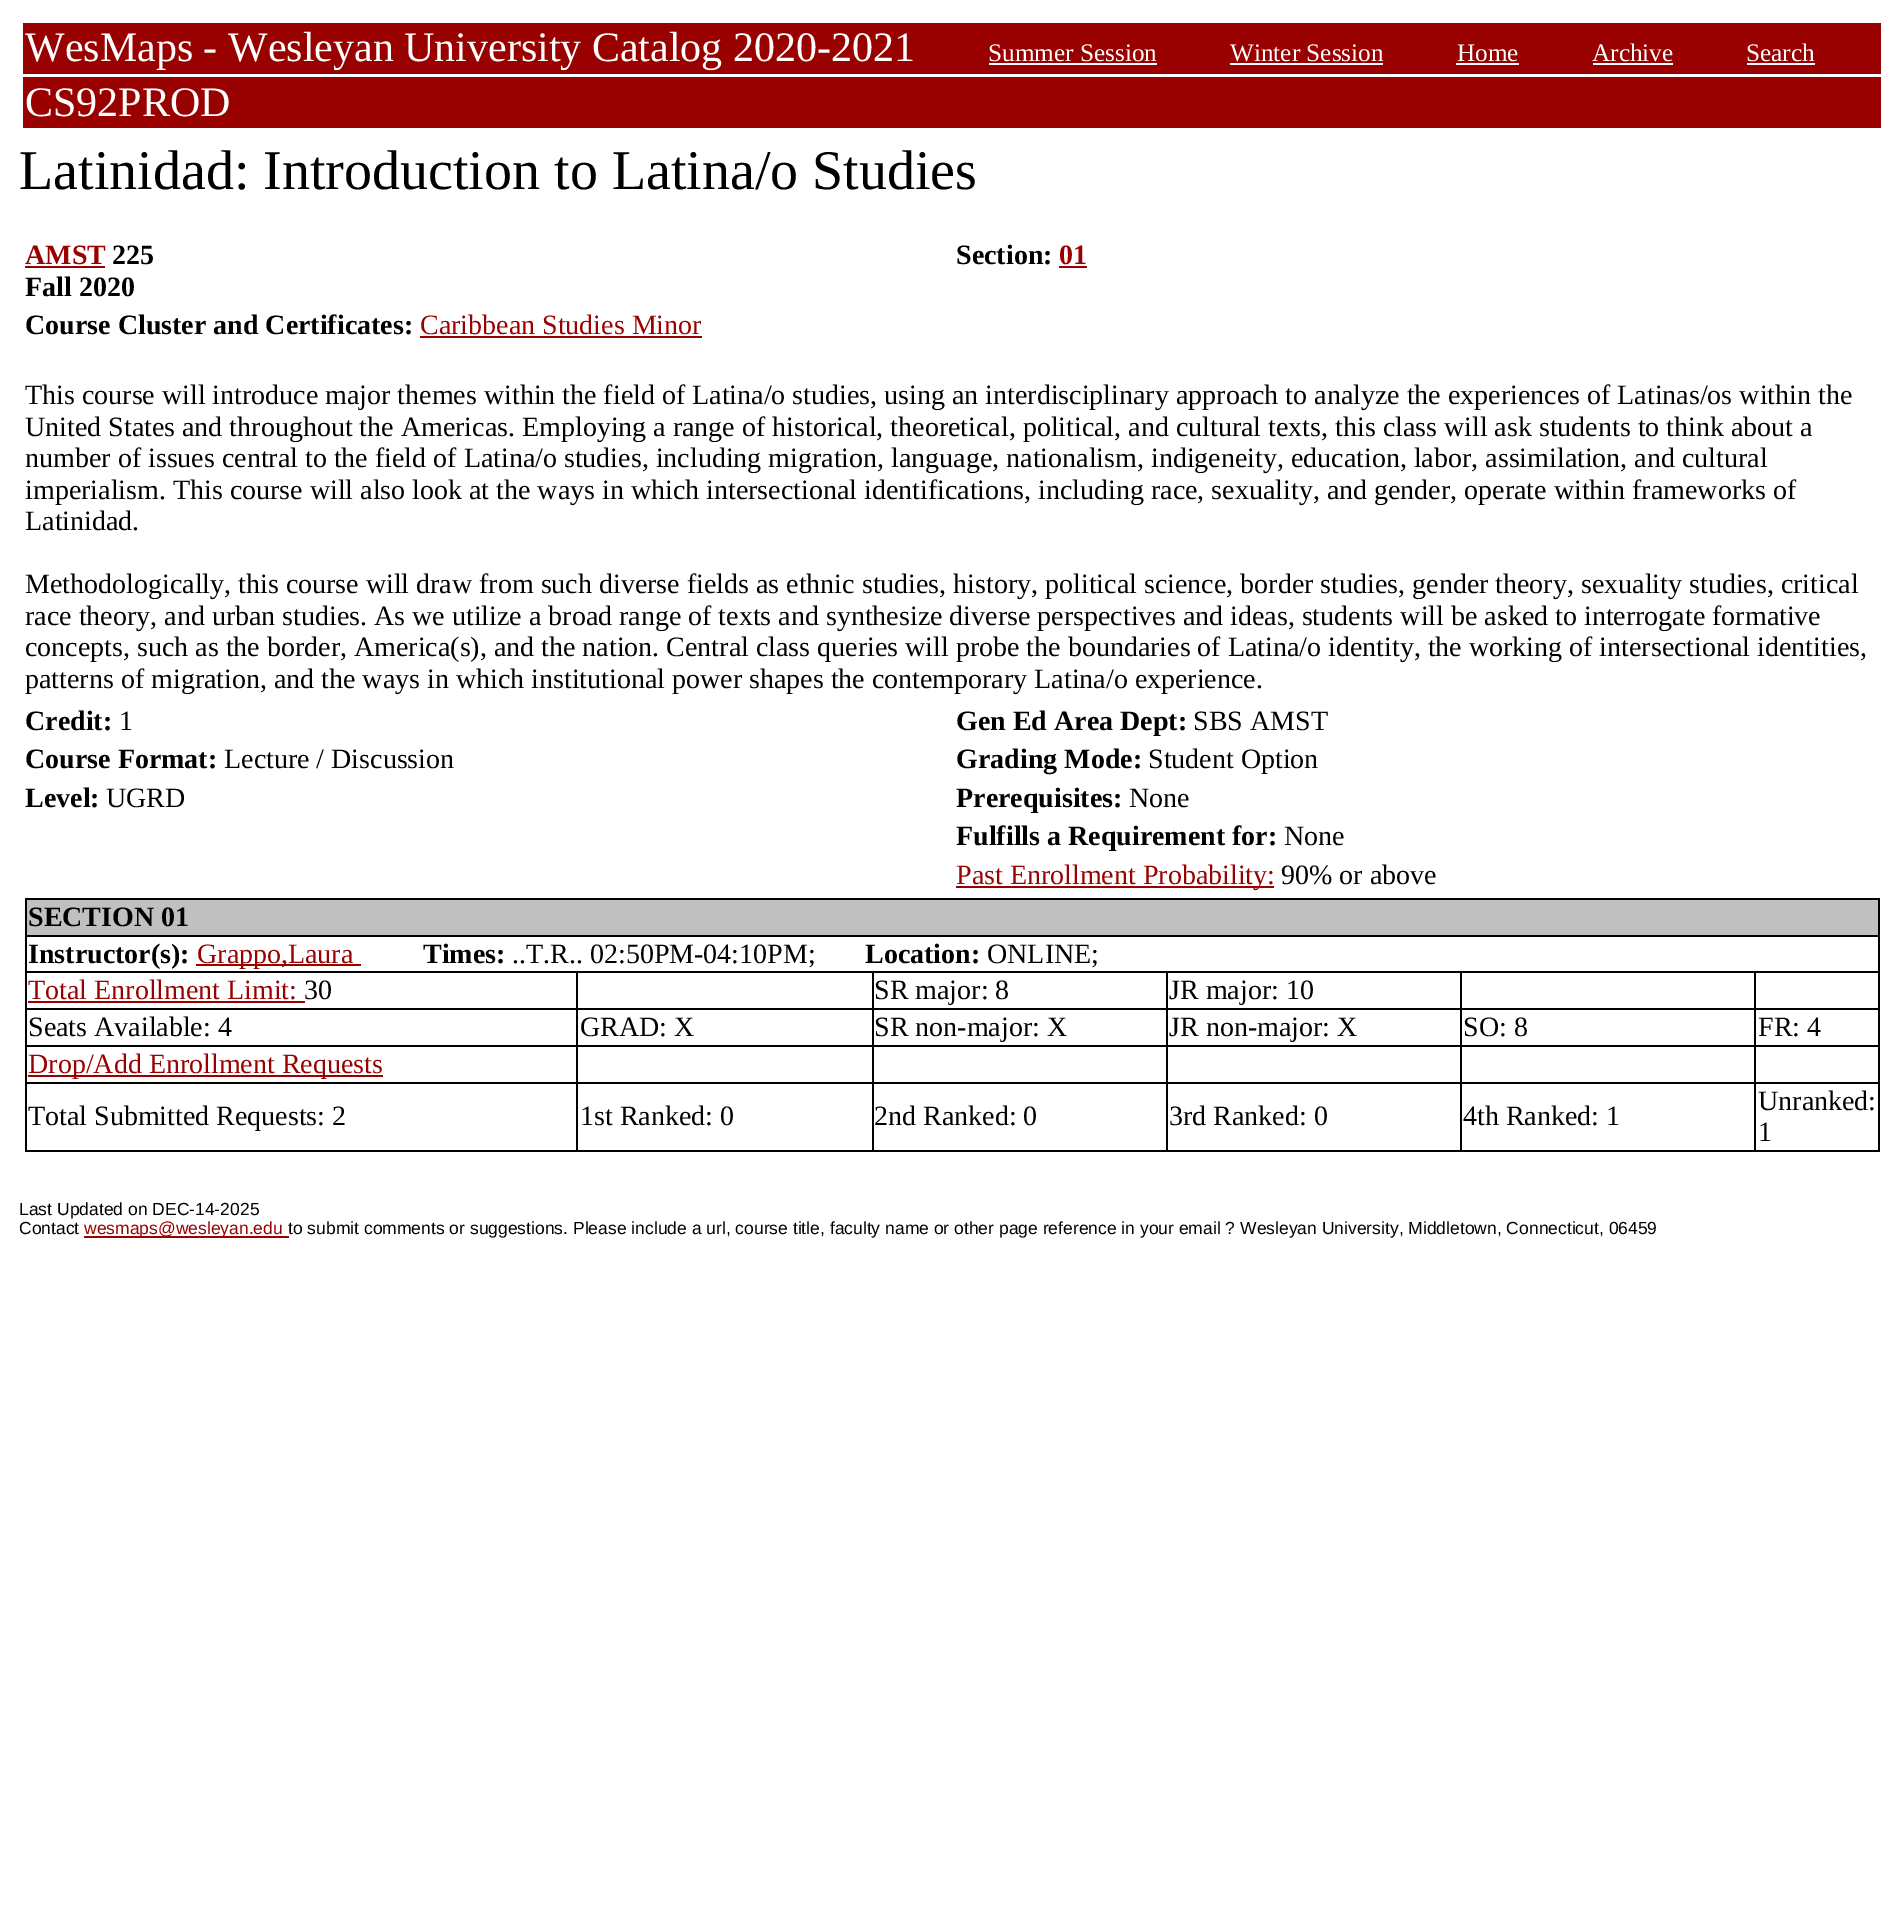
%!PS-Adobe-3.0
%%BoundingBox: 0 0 1903 1919
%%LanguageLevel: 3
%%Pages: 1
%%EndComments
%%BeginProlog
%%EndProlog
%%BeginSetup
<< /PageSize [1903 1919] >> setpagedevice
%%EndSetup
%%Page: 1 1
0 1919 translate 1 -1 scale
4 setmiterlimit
1 setgray
0 0 1903 1919 rectfill
0.6 0 0 setrgbcolor
23 23 1858 51 rectfill
1 setgray
989 63 168 2 rectfill
1230 63 153 2 rectfill
1456 63 63 2 rectfill
1593 63 80 2 rectfill
1747 63 68 2 rectfill
0.6 0 0 setrgbcolor
23 77 1858 51 rectfill
25 266 80 2 rectfill
1059 266 28 2 rectfill
420 336 282 2 rectfill
956 886 318 2 rectfill
0 setgray
25 898 1855 2 rectfill
1878 898 2 254 rectfill
25 1150 1855 2 rectfill
25 898 2 254 rectfill
0.753 setgray
27 900 1851 35 rectfill
0 setgray
25 935 1855 2 rectfill
0.6 0 0 setrgbcolor
196 964 165 2 rectfill
0 setgray
1754 971 126 2 rectfill
1754 1008 126 2 rectfill
1754 1045 126 2 rectfill
1754 1082 126 2 rectfill
1754 1082 2 70 rectfill
1460 1082 295 2 rectfill
1754 1045 2 38 rectfill
1460 1045 295 2 rectfill
1754 1008 2 39 rectfill
1460 1008 295 2 rectfill
1754 971 2 39 rectfill
1460 971 295 2 rectfill
1460 1082 2 70 rectfill
1166 1082 295 2 rectfill
1460 1045 2 38 rectfill
1166 1045 295 2 rectfill
1460 1008 2 39 rectfill
1166 1008 295 2 rectfill
1460 971 2 39 rectfill
1166 971 295 2 rectfill
1166 1082 2 70 rectfill
872 1082 295 2 rectfill
1166 1045 2 38 rectfill
872 1045 295 2 rectfill
1166 1008 2 39 rectfill
872 1008 295 2 rectfill
1166 971 2 39 rectfill
872 971 295 2 rectfill
872 1082 2 70 rectfill
576 1082 297 2 rectfill
872 1045 2 38 rectfill
576 1045 297 2 rectfill
872 1008 2 39 rectfill
576 1008 297 2 rectfill
872 971 2 39 rectfill
576 971 297 2 rectfill
576 1082 2 70 rectfill
25 1082 553 2 rectfill
576 1045 2 38 rectfill
25 1045 553 2 rectfill
576 1008 2 39 rectfill
25 1008 553 2 rectfill
576 971 2 39 rectfill
25 971 553 2 rectfill
0.6 0 0 setrgbcolor
28 1001 277 2 rectfill
28 1075 355 2 rectfill
84 1236 205 2 rectfill
/LiberationSerif-Regular [42 0 0 -42 0 0] selectfont
1 setgray
25 61 moveto (WesMaps - Wesleyan University Catalog 2020-2021) show
/LiberationSerif-Regular [25.25 0 0 -25.25 0 0] selectfont
988 61 moveto (Summer Session) show
1230 61 moveto (Winter Session) show
1457 61 moveto (Home) show
1592 61 moveto (Archive) show
1746 61 moveto (Search) show
/LiberationSerif-Regular [42 0 0 -42 0 0] selectfont
25 116 moveto (CS92PROD) show
/LiberationSerif-Regular [56 0 0 -56 0 0] selectfont
0 setgray
19 189 moveto (Latinidad: Introduction to Latina/o Studies) show
/LiberationSerif-Bold [28 0 0 -28 0 0] selectfont
0.6 0 0 setrgbcolor
25 264 moveto (AMST) show
0 setgray
112 264 moveto (225) show
25 296 moveto (Fall 2020) show
956 264 moveto (Section:) show
0.6 0 0 setrgbcolor
1059 264 moveto (01) show
0 setgray
25 334 moveto (Course Cluster and Certificates:) show
/LiberationSerif-Regular [28 0 0 -28 0 0] selectfont
0.6 0 0 setrgbcolor
420 334 moveto (Caribbean Studies Minor) show
0 setgray
25 404 moveto (This course will introduce major themes within the field of Latina/o studies, using an interdisciplinary approach to analyze the experiences of Latinas/os within the) show
25 436 moveto (United States and throughout the Americas. Employing a range of historical, theoretical, political, and cultural texts, this class will ask students to think about a) show
25 467 moveto (number of issues central to the field of Latina/o studies, including migration, language, nationalism, indigeneity, education, labor, assimilation, and cultural) show
25 499 moveto (imperialism. This course will also look at the ways in which intersectional identifications, including race, sexuality, and gender, operate within frameworks of) show
25 530 moveto (Latinidad.) show
25 593 moveto (Methodologically, this course will draw from such diverse fields as ethnic studies, history, political science, border studies, gender theory, sexuality studies, critical) show
25 625 moveto (race theory, and urban studies. As we utilize a broad range of texts and synthesize diverse perspectives and ideas, students will be asked to interrogate formative) show
25 656 moveto (concepts, such as the border, America\(s\), and the nation. Central class queries will probe the boundaries of Latina/o identity, the working of intersectional identities,) show
25 688 moveto (patterns of migration, and the ways in which institutional power shapes the contemporary Latina/o experience.) show
/LiberationSerif-Bold [28 0 0 -28 0 0] selectfont
25 730 moveto (Credit:) show
/LiberationSerif-Regular [28 0 0 -28 0 0] selectfont
119 730 moveto (1) show
/LiberationSerif-Bold [28 0 0 -28 0 0] selectfont
956 730 moveto (Gen Ed Area Dept:) show
/LiberationSerif-Regular [28 0 0 -28 0 0] selectfont
1193 730 moveto (SBS AMST) show
/LiberationSerif-Bold [28 0 0 -28 0 0] selectfont
25 768 moveto (Course Format:) show
/LiberationSerif-Regular [28 0 0 -28 0 0] selectfont
224 768 moveto (Lecture / Discussion) show
/LiberationSerif-Bold [28 0 0 -28 0 0] selectfont
956 768 moveto (Grading Mode:) show
/LiberationSerif-Regular [28 0 0 -28 0 0] selectfont
1148 768 moveto (Student Option) show
/LiberationSerif-Bold [28 0 0 -28 0 0] selectfont
25 807 moveto (Level:) show
/LiberationSerif-Regular [28 0 0 -28 0 0] selectfont
106 807 moveto (UGRD) show
/LiberationSerif-Bold [28 0 0 -28 0 0] selectfont
956 807 moveto (Prerequisites:) show
/LiberationSerif-Regular [28 0 0 -28 0 0] selectfont
1129 807 moveto (None) show
/LiberationSerif-Bold [28 0 0 -28 0 0] selectfont
956 845 moveto (Fulfills a Requirement for:) show
/LiberationSerif-Regular [28 0 0 -28 0 0] selectfont
1284 845 moveto (None) show
0.6 0 0 setrgbcolor
956 884 moveto (Past Enrollment Probability:) show
0 setgray
1281 884 moveto (90% or above) show
/LiberationSerif-Bold [28 0 0 -28 0 0] selectfont
28 926 moveto (SECTION 01) show
28 963 moveto (Instructor\(s\):) show
/LiberationSerif-Regular [28 0 0 -28 0 0] selectfont
0.6 0 0 setrgbcolor
197 963 moveto (Grappo,Laura) show
/LiberationSerif-Bold [28 0 0 -28 0 0] selectfont
0 setgray
423 963 moveto (Times:) show
/LiberationSerif-Regular [28 0 0 -28 0 0] selectfont
512 963 moveto (..T.R.. 02:50PM-04:10PM;) show
/LiberationSerif-Bold [28 0 0 -28 0 0] selectfont
865 963 moveto (Location:) show
/LiberationSerif-Regular [28 0 0 -28 0 0] selectfont
987 963 moveto (ONLINE;) show
0.6 0 0 setrgbcolor
28 999 moveto (Total Enrollment Limit:) show
0 setgray
304 999 moveto (30) show
874 999 moveto (SR major: 8) show
1169 999 moveto (JR major: 10) show
28 1036 moveto (Seats Available: 4) show
580 1036 moveto (GRAD: X) show
874 1036 moveto (SR non-major: X) show
1169 1036 moveto (JR non-major: X) show
1463 1036 moveto (SO: 8) show
1758 1036 moveto (FR: 4) show
0.6 0 0 setrgbcolor
28 1073 moveto (Drop/Add Enrollment Requests) show
0 setgray
28 1125 moveto (Total Submitted Requests: 2) show
580 1125 moveto (1st Ranked: 0) show
874 1125 moveto (2nd Ranked: 0) show
1169 1125 moveto (3rd Ranked: 0) show
1463 1125 moveto (4th Ranked: 1) show
1758 1110 moveto (Unranked:) show
1758 1141 moveto (1) show
/LiberationSans-Regular [17.5 0 0 -17.5 0 0] selectfont
19 1215 moveto (Last Updated on DEC-14-2025) show
19 1234 moveto (Contact) show
0.6 0 0 setrgbcolor
84 1234 moveto (wesmaps@wesleyan.edu) show
0 setgray
288 1234 moveto (to submit comments or suggestions. Please include a url, course title, faculty name or other page reference in your email ? Wesleyan University, Middletown, Connecticut, 06459) show
showpage
%%EOF
